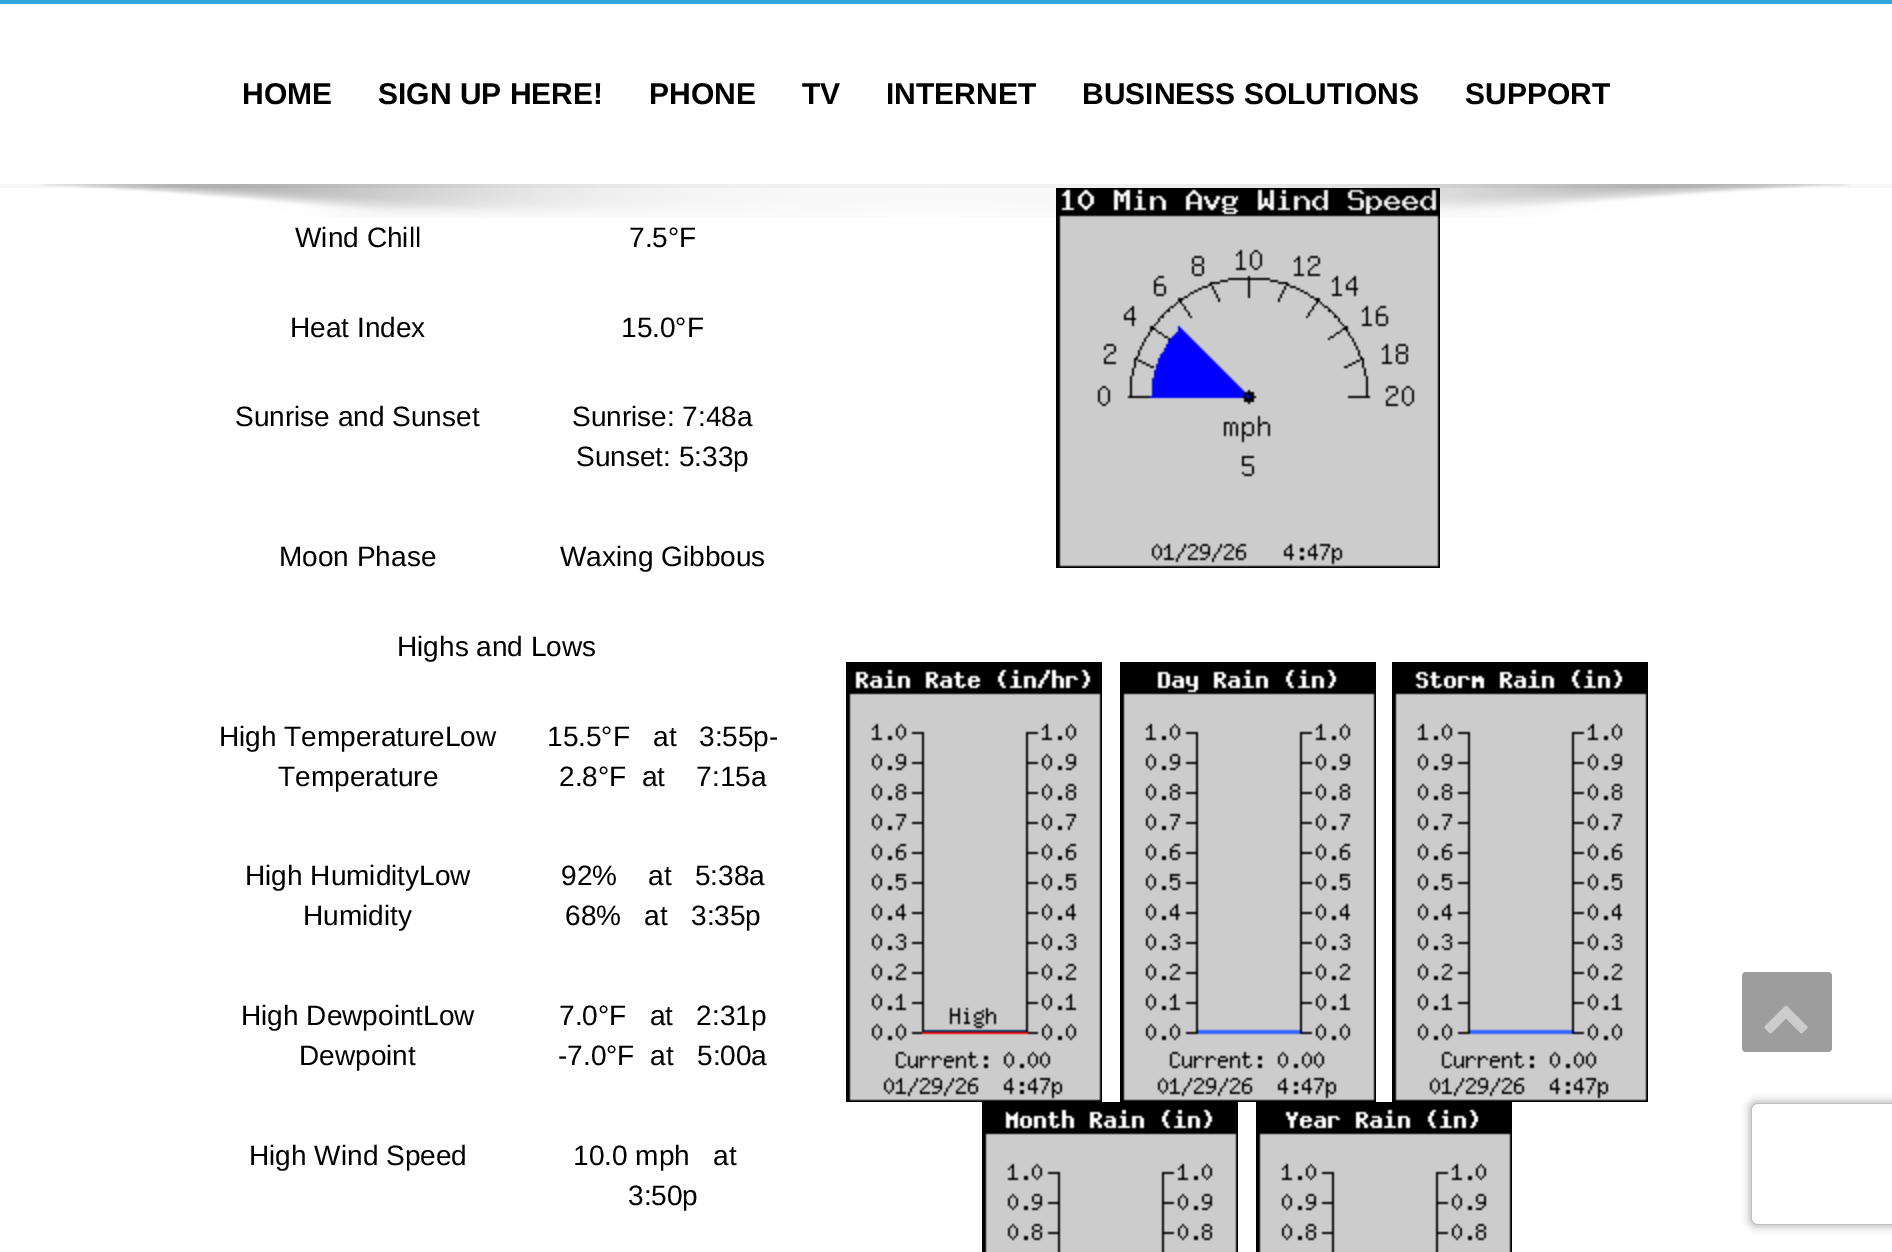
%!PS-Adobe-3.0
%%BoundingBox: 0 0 1892 1252
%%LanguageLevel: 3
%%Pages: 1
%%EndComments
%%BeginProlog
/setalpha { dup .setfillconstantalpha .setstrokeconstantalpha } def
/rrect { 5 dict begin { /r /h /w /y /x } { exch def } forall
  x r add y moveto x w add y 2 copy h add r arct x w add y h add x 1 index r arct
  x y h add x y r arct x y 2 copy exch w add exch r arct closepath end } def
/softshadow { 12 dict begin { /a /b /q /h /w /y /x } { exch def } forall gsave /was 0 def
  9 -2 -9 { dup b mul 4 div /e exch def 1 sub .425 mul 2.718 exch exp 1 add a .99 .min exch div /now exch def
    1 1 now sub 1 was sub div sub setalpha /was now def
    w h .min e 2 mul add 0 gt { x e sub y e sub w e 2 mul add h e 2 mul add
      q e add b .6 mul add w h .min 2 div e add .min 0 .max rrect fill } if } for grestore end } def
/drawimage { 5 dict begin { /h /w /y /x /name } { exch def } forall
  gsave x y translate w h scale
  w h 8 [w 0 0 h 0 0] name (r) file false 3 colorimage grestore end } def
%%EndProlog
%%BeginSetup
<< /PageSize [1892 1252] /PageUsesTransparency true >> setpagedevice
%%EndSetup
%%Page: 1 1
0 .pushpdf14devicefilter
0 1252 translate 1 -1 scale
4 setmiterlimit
1 setgray
0 0 1892 1252 rectfill
0.192 0.639 0.867 setrgbcolor
0 0 1892 4 rectfill
0.969 0.961 0.961 setrgbcolor
0 184 1892 4 rectfill
(images/2.raw) 1056 188 384 380 drawimage
(images/1.raw) 39 184 1811 34 drawimage
(images/3.raw) 846 662 256 440 drawimage
(images/4.raw) 1120 662 256 440 drawimage
(images/5.raw) 1392 662 256 440 drawimage
(images/6.raw) 982 1102 256 150 drawimage
(images/7.raw) 1256 1102 256 150 drawimage
0.616 setgray
1742 972 90 80 4 rrect fill
(images/8.raw) 1764 1005 44 29 drawimage
gsave
newpath 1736 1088 moveto 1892 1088 lineto 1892 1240 lineto 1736 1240 lineto closepath 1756 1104 moveto 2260 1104 lineto 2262 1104 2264 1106 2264 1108 curveto 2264 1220 lineto 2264 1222 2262 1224 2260 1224 curveto 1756 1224 lineto 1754 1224 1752 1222 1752 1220 curveto 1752 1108 lineto 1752 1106 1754 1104 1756 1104 curveto closepath eoclip newpath
0.502 setgray
1752 1104 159 120 4 5 1 softshadow
grestore
/LiberationSans-Bold [30 0 0 -30 0 0] selectfont
0 setgray
242 104 moveto (HOME) show
378 104 moveto (SIGN UP HERE!) show
649 104 moveto (PHONE) show
802 104 moveto (TV) show
886 104 moveto (INTERNET) show
1082 104 moveto (BUSINESS SOLUTIONS) show
1465 104 moveto (SUPPORT) show
/LiberationSans-Regular [28 0 0 -28 0 0] selectfont
295 247 moveto (Wind Chill) show
629 247 moveto (7.5°F) show
290 337 moveto (Heat Index) show
621 337 moveto (15.0°F) show
235 426 moveto (Sunrise and Sunset) show
572 426 moveto (Sunrise: 7:48a) show
576 466 moveto (Sunset: 5:33p) show
279 566 moveto (Moon Phase) show
560 566 moveto (Waxing Gibbous) show
397 656 moveto (Highs and Lows) show
219 746 moveto (High TemperatureLow) show
278 786 moveto (Temperature) show
547 746 moveto (15.5°F   at) show
699 746 moveto (3:55p-) show
559 786 moveto (2.8°F  at    7:15a) show
245 885 moveto (High HumidityLow) show
303 925 moveto (Humidity) show
561 885 moveto (92%    at   5:38a) show
565 925 moveto (68%   at) show
691 925 moveto (3:35p) show
241 1025 moveto (High DewpointLow) show
299 1065 moveto (Dewpoint) show
559 1025 moveto (7.0°F   at   2:31p) show
558 1065 moveto (-7.0°F  at) show
697 1065 moveto (5:00a) show
249 1165 moveto (High Wind Speed) show
573 1165 moveto (10.0 mph   at) show
628 1205 moveto (3:50p) show
.poppdf14devicefilter showpage
%%EOF
